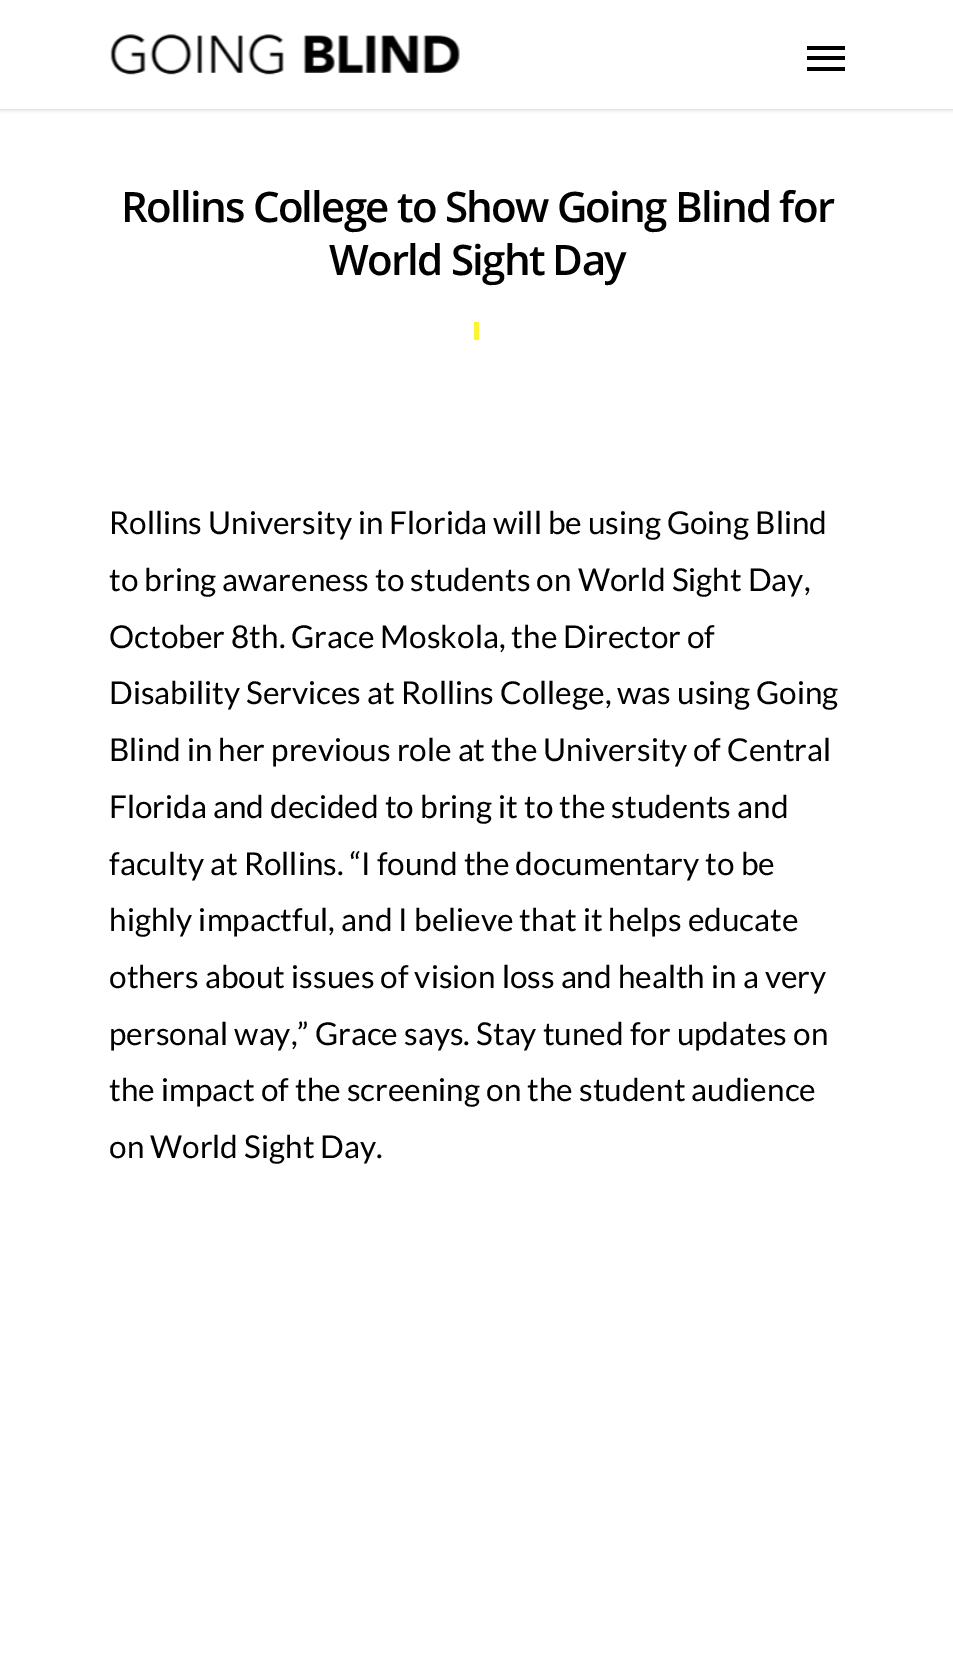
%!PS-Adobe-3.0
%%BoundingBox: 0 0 953 1661
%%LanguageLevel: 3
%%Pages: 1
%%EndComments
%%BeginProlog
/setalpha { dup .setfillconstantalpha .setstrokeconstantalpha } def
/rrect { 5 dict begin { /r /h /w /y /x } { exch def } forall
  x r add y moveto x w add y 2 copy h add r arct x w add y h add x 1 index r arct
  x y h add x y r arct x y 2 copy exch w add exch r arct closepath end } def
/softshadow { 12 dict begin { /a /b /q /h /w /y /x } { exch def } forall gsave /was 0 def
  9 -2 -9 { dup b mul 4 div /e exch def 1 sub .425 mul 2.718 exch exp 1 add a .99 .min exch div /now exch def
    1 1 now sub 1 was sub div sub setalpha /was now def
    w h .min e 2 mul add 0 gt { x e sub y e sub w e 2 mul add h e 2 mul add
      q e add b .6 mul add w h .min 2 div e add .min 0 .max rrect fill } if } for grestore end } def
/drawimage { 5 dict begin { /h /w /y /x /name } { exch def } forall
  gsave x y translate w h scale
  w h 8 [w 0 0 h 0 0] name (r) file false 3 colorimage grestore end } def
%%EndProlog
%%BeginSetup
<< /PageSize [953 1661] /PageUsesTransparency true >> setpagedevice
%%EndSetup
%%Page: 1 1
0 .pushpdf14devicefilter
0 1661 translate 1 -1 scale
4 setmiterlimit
1 setgray
0 0 953 1661 rectfill
0 setgray
0 0 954 109 0 2.5 0.22 softshadow
1 setgray
0 0 953 109 rectfill
(images/1.raw) 110 34 350 41 drawimage
0 setgray
807 46 38 4 rectfill
807 67 38 4 rectfill
807 56 38 4 rectfill
1 0.949 0.2 setrgbcolor
474 322 5 18 rectfill
/OpenSans-SemiBold [42 0 0 -42 0 0] selectfont
0 setgray
121 222 moveto -1.75 0 (Rollins College to Show Going Blind for) ashow
329 275 moveto -1.75 0 (World Sight Day) ashow
/Lato-Regular [31.5 0 0 -31.5 0 0] selectfont
109 534 moveto (Rollins University in Florida will be using Going Blind) show
109 591 moveto (to bring awareness to students on World Sight Day,) show
109 648 moveto (October 8th. Grace Moskola, the Director of) show
109 704 moveto (Disability Services at Rollins College, was using Going) show
109 761 moveto (Blind in her previous role at the University of Central) show
109 818 moveto (Florida and decided to bring it to the students and) show
109 875 moveto (faculty at Rollins. “I found the documentary to be) show
109 931 moveto (highly impactful, and I believe that it helps educate) show
109 988 moveto (others about issues of vision loss and health in a very) show
109 1045 moveto (personal way,” Grace says. Stay tuned for updates on) show
109 1101 moveto (the impact of the screening on the student audience) show
109 1158 moveto (on World Sight Day.) show
.poppdf14devicefilter showpage
%%EOF
